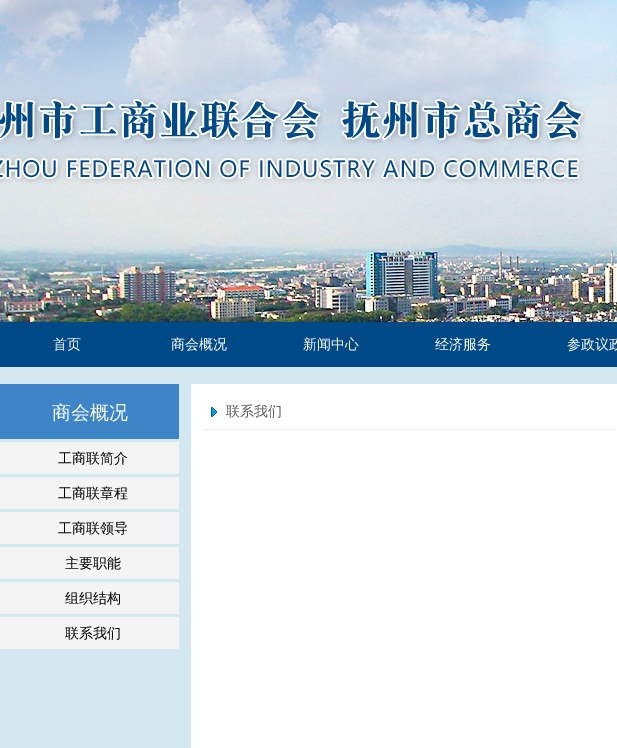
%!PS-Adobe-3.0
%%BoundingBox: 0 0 617 748
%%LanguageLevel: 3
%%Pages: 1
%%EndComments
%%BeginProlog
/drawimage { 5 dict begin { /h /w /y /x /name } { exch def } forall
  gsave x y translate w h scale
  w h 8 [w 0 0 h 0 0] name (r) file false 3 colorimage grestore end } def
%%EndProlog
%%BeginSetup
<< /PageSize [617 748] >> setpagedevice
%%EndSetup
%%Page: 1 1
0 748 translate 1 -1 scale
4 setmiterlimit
0.831 0.91 0.945 setrgbcolor
0 0 617 748 rectfill
(images/1.raw) 0 0 617 322 drawimage
(images/2.raw) 0 97 586 87 drawimage
0 0.286 0.529 setrgbcolor
0 322 1 45 rectfill
1 322 616 45 rectfill
0.239 0.522 0.776 setrgbcolor
0 384 179 55 rectfill
1 setgray
191 384 426 364 rectfill
(images/3.raw) 211 407 6 10 drawimage
0.886 setgray
[1 1] 0 setdash
newpath 203 429.5 moveto 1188 429.5 lineto stroke
0.957 setgray
0 442 179 32 rectfill
0 477 179 32 rectfill
0 512 179 32 rectfill
0 547 179 32 rectfill
0 582 179 32 rectfill
0 617 179 32 rectfill
/WenQuanYiZenHei-Medium [14 0 0 -14 0 0] selectfont
1 setgray
53 349 moveto (首页) show
171 349 moveto (商会概况) show
303 349 moveto (新闻中心) show
435 349 moveto (经济服务) show
567 349 moveto (参政议政) show
/WenQuanYiZenHei-Medium [19 0 0 -19 0 0] selectfont
52 419 moveto (商会概况) show
/WenQuanYiZenHei-Medium [14 0 0 -14 0 0] selectfont
0.353 setgray
226 416 moveto (联系我们) show
0 setgray
58 463 moveto (工商联简介) show
58 498 moveto (工商联章程) show
58 533 moveto (工商联领导) show
65 568 moveto (主要职能) show
65 603 moveto (组织结构) show
65 638 moveto (联系我们) show
showpage
%%EOF
